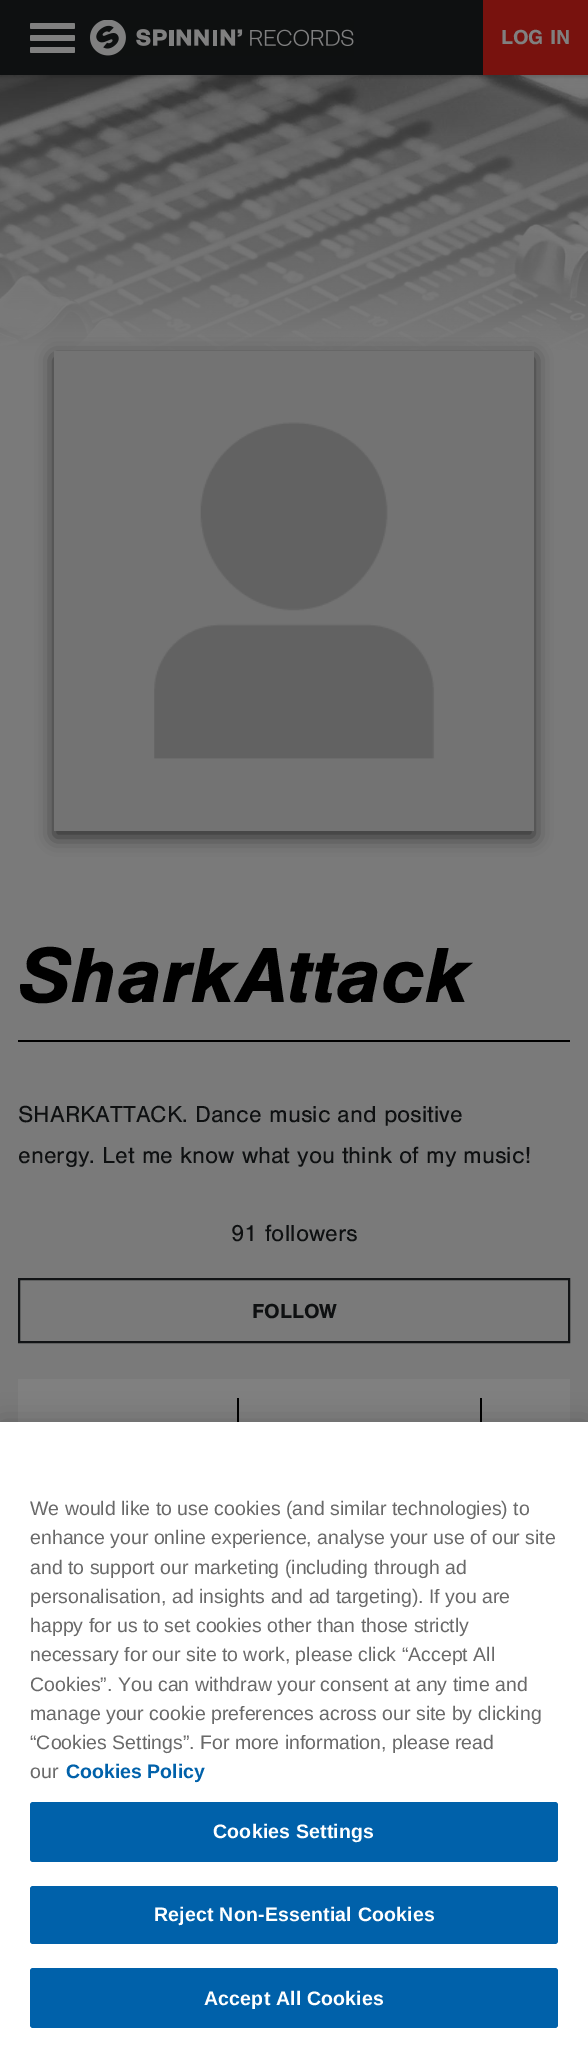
%!PS-Adobe-3.0
%%BoundingBox: 0 0 588 2051
%%LanguageLevel: 3
%%Pages: 1
%%EndComments
%%BeginProlog
/setalpha { dup .setfillconstantalpha .setstrokeconstantalpha } def
/rrect { 5 dict begin { /r /h /w /y /x } { exch def } forall
  x r add y moveto x w add y 2 copy h add r arct x w add y h add x 1 index r arct
  x y h add x y r arct x y 2 copy exch w add exch r arct closepath end } def
/softshadow { 12 dict begin { /a /b /q /h /w /y /x } { exch def } forall gsave /was 0 def
  9 -2 -9 { dup b mul 4 div /e exch def 1 sub .425 mul 2.718 exch exp 1 add a .99 .min exch div /now exch def
    1 1 now sub 1 was sub div sub setalpha /was now def
    w h .min e 2 mul add 0 gt { x e sub y e sub w e 2 mul add h e 2 mul add
      q e add b .6 mul add w h .min 2 div e add .min 0 .max rrect fill } if } for grestore end } def
/drawimage { 5 dict begin { /h /w /y /x /name } { exch def } forall
  gsave x y translate w h scale
  w h 8 [w 0 0 h 0 0] name (r) file false 3 colorimage grestore end } def
%%EndProlog
%%BeginSetup
<< /PageSize [588 2051] /PageUsesTransparency true >> setpagedevice
%%EndSetup
%%Page: 1 1
0 .pushpdf14devicefilter
0 2051 translate 1 -1 scale
4 setmiterlimit
0.478 setgray
0 0 588 2051 rectfill
(images/2.raw) 0 75 588 300 drawimage
0 setgray
0 2 588 75 0 1.5 0.15 softshadow
0.055 0.063 0.067 setrgbcolor
0 0 483 75 rectfill
0.502 setgray
30 23 45 6 1.5 rrect fill
30 35 45 6 1.5 rrect fill
30 47 45 6 1.5 rrect fill
(images/1.raw) 90 20 264 36 drawimage
0.471 0.071 0.055 setrgbcolor
483 0 105 75 rectfill
0 setgray
54 357 480 480 0 9 0.6 softshadow
(images/3.raw) 54 351 480 480 drawimage
18 1040 552 2 rectfill
0.067 0.075 0.082 setrgbcolor
2 setlinewidth
19 1279 550 63 rectstroke
0.502 setgray
18 1379 552 43 rectfill
0 setgray
237 1398 2 24 rectfill
480 1398 2 24 rectfill
0 1422 588 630 0 13.5 0.2 softshadow
1 setgray
0 1422 588 629 rectfill
0 0.38 0.667 setrgbcolor
30 1802 528 60 3 rrect fill
30 1886 528 58 3 rrect fill
30 1968 528 60 3 rrect fill
/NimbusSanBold-Bold [21 0 0 -21 0 0] selectfont
0.502 setgray
501 44 moveto (LOG IN) show
/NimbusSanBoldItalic-BoldItalic [81 0 0 -81 0 0] selectfont
0 setgray
18 1002 moveto (SharkAttack) show
/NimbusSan-Regular [24 0 0 -24 0 0] selectfont
0.055 0.063 0.067 setrgbcolor
18 1122 moveto (SHARKATTACK. Dance music and positive) show
18 1163 moveto (energy. Let me know what you think of my music!) show
231 1241 moveto (91 followers) show
/NimbusSanBold-Bold [21 0 0 -21 0 0] selectfont
252 1318 moveto (FOLLOW) show
/LiberationSans-Regular [19.5 0 0 -19.5 0 0] selectfont
0.412 setgray
30 1515 moveto (We would like to use cookies \(and similar technologies\) to) show
30 1544 moveto (enhance your online experience, analyse your use of our site) show
30 1574 moveto (and to support our marketing \(including through ad) show
30 1603 moveto (personalisation, ad insights and ad targeting\). If you are) show
30 1632 moveto (happy for us to set cookies other than those strictly) show
30 1661 moveto (necessary for our site to work, please click “Accept All) show
30 1691 moveto (Cookies”. You can withdraw your consent at any time and) show
30 1720 moveto (manage your cookie preferences across our site by clicking) show
30 1749 moveto (“Cookies Settings”. For more information, please read) show
30 1778 moveto (our) show
/LiberationSans-Bold [19.5 0 0 -19.5 0 0] selectfont
0 0.38 0.667 setrgbcolor
66 1778 moveto (Cookies Policy) show
1 setgray
213 1838 moveto 0.2 0 (Cookies Settings) ashow
154 1921 moveto 0.2 0 (Reject Non-Essential Cookies) ashow
204 2005 moveto 0.2 0 (Accept All Cookies) ashow
.poppdf14devicefilter showpage
%%EOF
